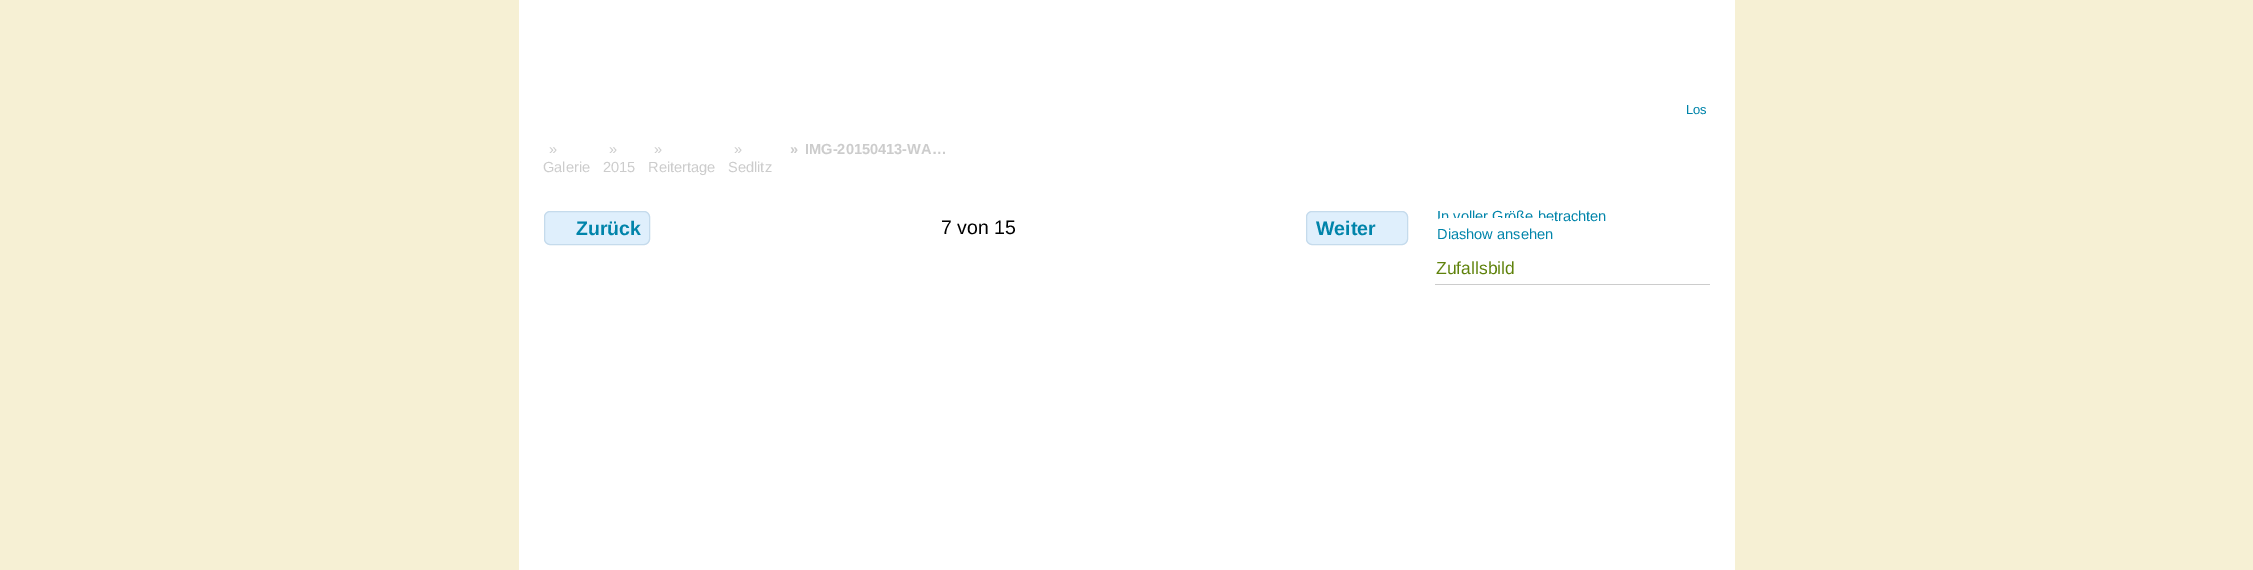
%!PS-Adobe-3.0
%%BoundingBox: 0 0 2253 570
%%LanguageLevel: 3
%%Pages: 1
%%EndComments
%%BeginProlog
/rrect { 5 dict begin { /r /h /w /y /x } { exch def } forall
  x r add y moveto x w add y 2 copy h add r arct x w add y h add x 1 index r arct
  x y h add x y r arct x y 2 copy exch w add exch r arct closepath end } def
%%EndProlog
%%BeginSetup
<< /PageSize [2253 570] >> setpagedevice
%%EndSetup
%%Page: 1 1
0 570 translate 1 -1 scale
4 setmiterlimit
0.965 0.941 0.831 setrgbcolor
0 0 2253 570 rectfill
1 setgray
519 0 1216 570 rectfill
0.875 0.937 0.988 setrgbcolor
544.5 211.5 105 33 5.5 rrect gsave fill grestore
0.773 0.859 0.925 setrgbcolor
stroke
0.875 0.937 0.988 setrgbcolor
1306.5 211.5 101 33 5.5 rrect gsave fill grestore
0.773 0.859 0.925 setrgbcolor
stroke
0.8 setgray
1435 284 275 1 rectfill
/LiberationSans-Regular [13 0 0 -13 0 0] selectfont
0 0.518 0.667 setrgbcolor
1686 114 moveto (Los) show
/LiberationSans-Regular [14.6 0 0 -14.6 0 0] selectfont
0.8 setgray
549 154 moveto (») show
543 172 moveto (Galerie) show
609 154 moveto (») show
603 172 moveto (2015) show
654 154 moveto (») show
648 172 moveto (Reitertage) show
734 154 moveto (») show
728 172 moveto (Sedlitz) show
/LiberationSans-Bold [14.6 0 0 -14.6 0 0] selectfont
790 154 moveto (») show
805 154 moveto (IMG-20150413-WA…) show
/LiberationSans-Bold [19.5 0 0 -19.5 0 0] selectfont
0 0.518 0.667 setrgbcolor
576 235 moveto (Zurück) show
/LiberationSans-Regular [19.5 0 0 -19.5 0 0] selectfont
0 setgray
941 234 moveto (7 von 15) show
/LiberationSans-Bold [19.5 0 0 -19.5 0 0] selectfont
0 0.518 0.667 setrgbcolor
1316 235 moveto (Weiter) show
/LiberationSans-Regular [14.6 0 0 -14.6 0 0] selectfont
1437 221 moveto (In voller Größe betrachten) show
1 setgray
newpath 1442 218 moveto 1547 218 lineto 1550.5 218 1553 220.5 1553 224 curveto 1553 249 lineto 1436 249 lineto 1436 224 lineto 1436 220.5 1438.5 218 1442 218 curveto closepath fill
0 0.518 0.667 setrgbcolor
1437 239 moveto (Diashow ansehen) show
/LiberationSans-Regular [17.5 0 0 -17.5 0 0] selectfont
0.373 0.51 0.043 setrgbcolor
1436 274 moveto (Zufallsbild) show
showpage
%%EOF
